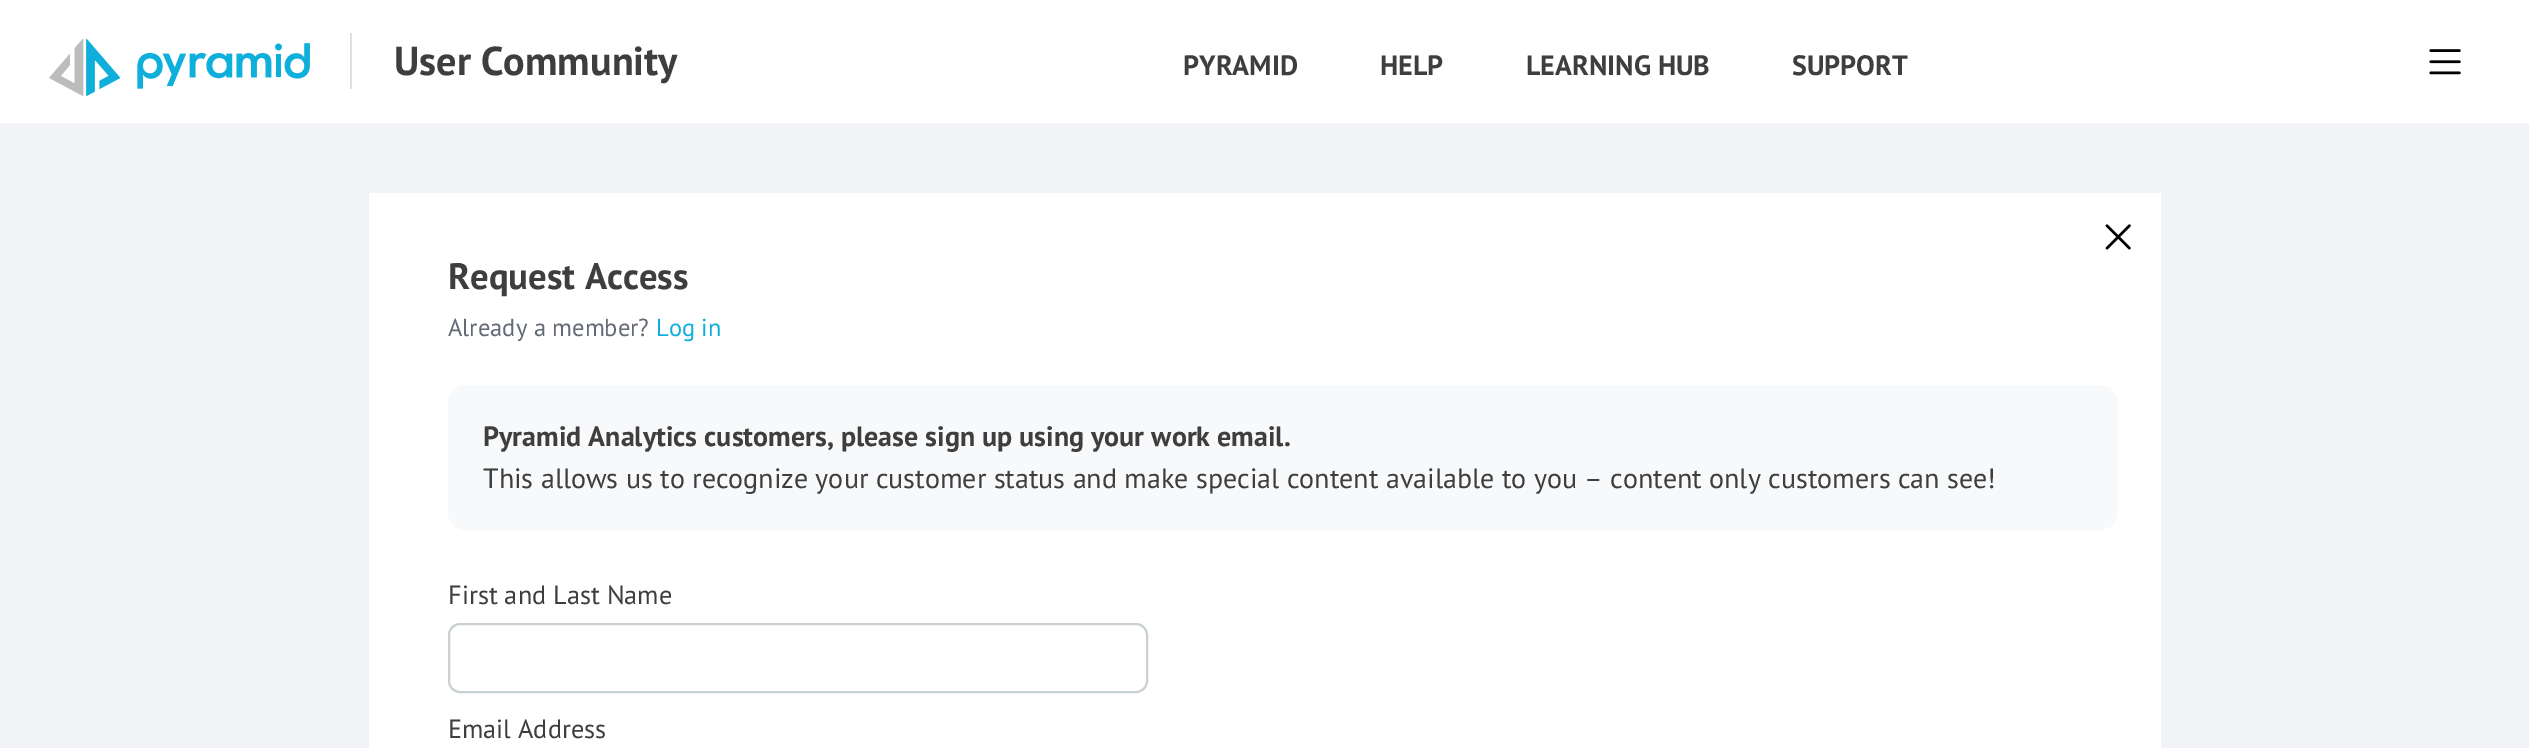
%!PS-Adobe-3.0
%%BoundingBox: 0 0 2529 748
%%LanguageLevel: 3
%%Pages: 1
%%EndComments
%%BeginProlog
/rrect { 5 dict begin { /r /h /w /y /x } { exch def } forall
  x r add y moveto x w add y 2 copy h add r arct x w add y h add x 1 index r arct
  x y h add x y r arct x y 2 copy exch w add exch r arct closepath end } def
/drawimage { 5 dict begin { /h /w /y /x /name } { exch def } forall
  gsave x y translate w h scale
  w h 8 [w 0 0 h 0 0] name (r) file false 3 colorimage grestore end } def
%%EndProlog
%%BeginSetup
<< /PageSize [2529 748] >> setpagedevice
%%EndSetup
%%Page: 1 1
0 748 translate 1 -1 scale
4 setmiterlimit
0.945 0.953 0.965 setrgbcolor
0 0 2529 748 rectfill
1 setgray
0 0 2529 123 rectfill
(images/1.raw) 49 39 261 57 drawimage
0.875 setgray
350 33 2 56 rectfill
(images/2.raw) 2429 49 32 26 drawimage
1 setgray
369 193 1792 555 rectfill
(images/3.raw) 2105 224 26 26 drawimage
0.969 0.976 0.984 setrgbcolor
448 385 1670 145 18 rrect fill
0.788 0.816 0.831 setrgbcolor
2 setlinewidth
449 624 698 68 11 rrect stroke
/PTSans-Bold [40.25 0 0 -40.25 0 0] selectfont
0.243 setgray
394 75 moveto (User Community) show
/PTSans-Bold [28 0 0 -28 0 0] selectfont
1183 75 moveto (PYRAMID) show
1380 75 moveto (HELP) show
1526 75 moveto (LEARNING HUB) show
1792 75 moveto (SUPPORT) show
/PTSans-Bold [36.75 0 0 -36.75 0 0] selectfont
448 289 moveto (Request Access) show
/PTSans-Regular [24.5 0 0 -24.5 0 0] selectfont
0.392 0.412 0.463 setrgbcolor
448 336 moveto (Already a member?) show
0.055 0.686 0.859 setrgbcolor
656 336 moveto (Log in) show
/PTSans-Bold [28 0 0 -28 0 0] selectfont
0.243 setgray
483 446 moveto (Pyramid Analytics customers, please sign up using your work email.) show
/PTSans-Regular [28 0 0 -28 0 0] selectfont
483 488 moveto (This allows us to recognize your customer status and make special content available to you – content only customers can see!) show
/PTSans-Regular [26.25 0 0 -26.25 0 0] selectfont
448 604 moveto (First and Last Name) show
448 738 moveto (Email Address) show
showpage
%%EOF
